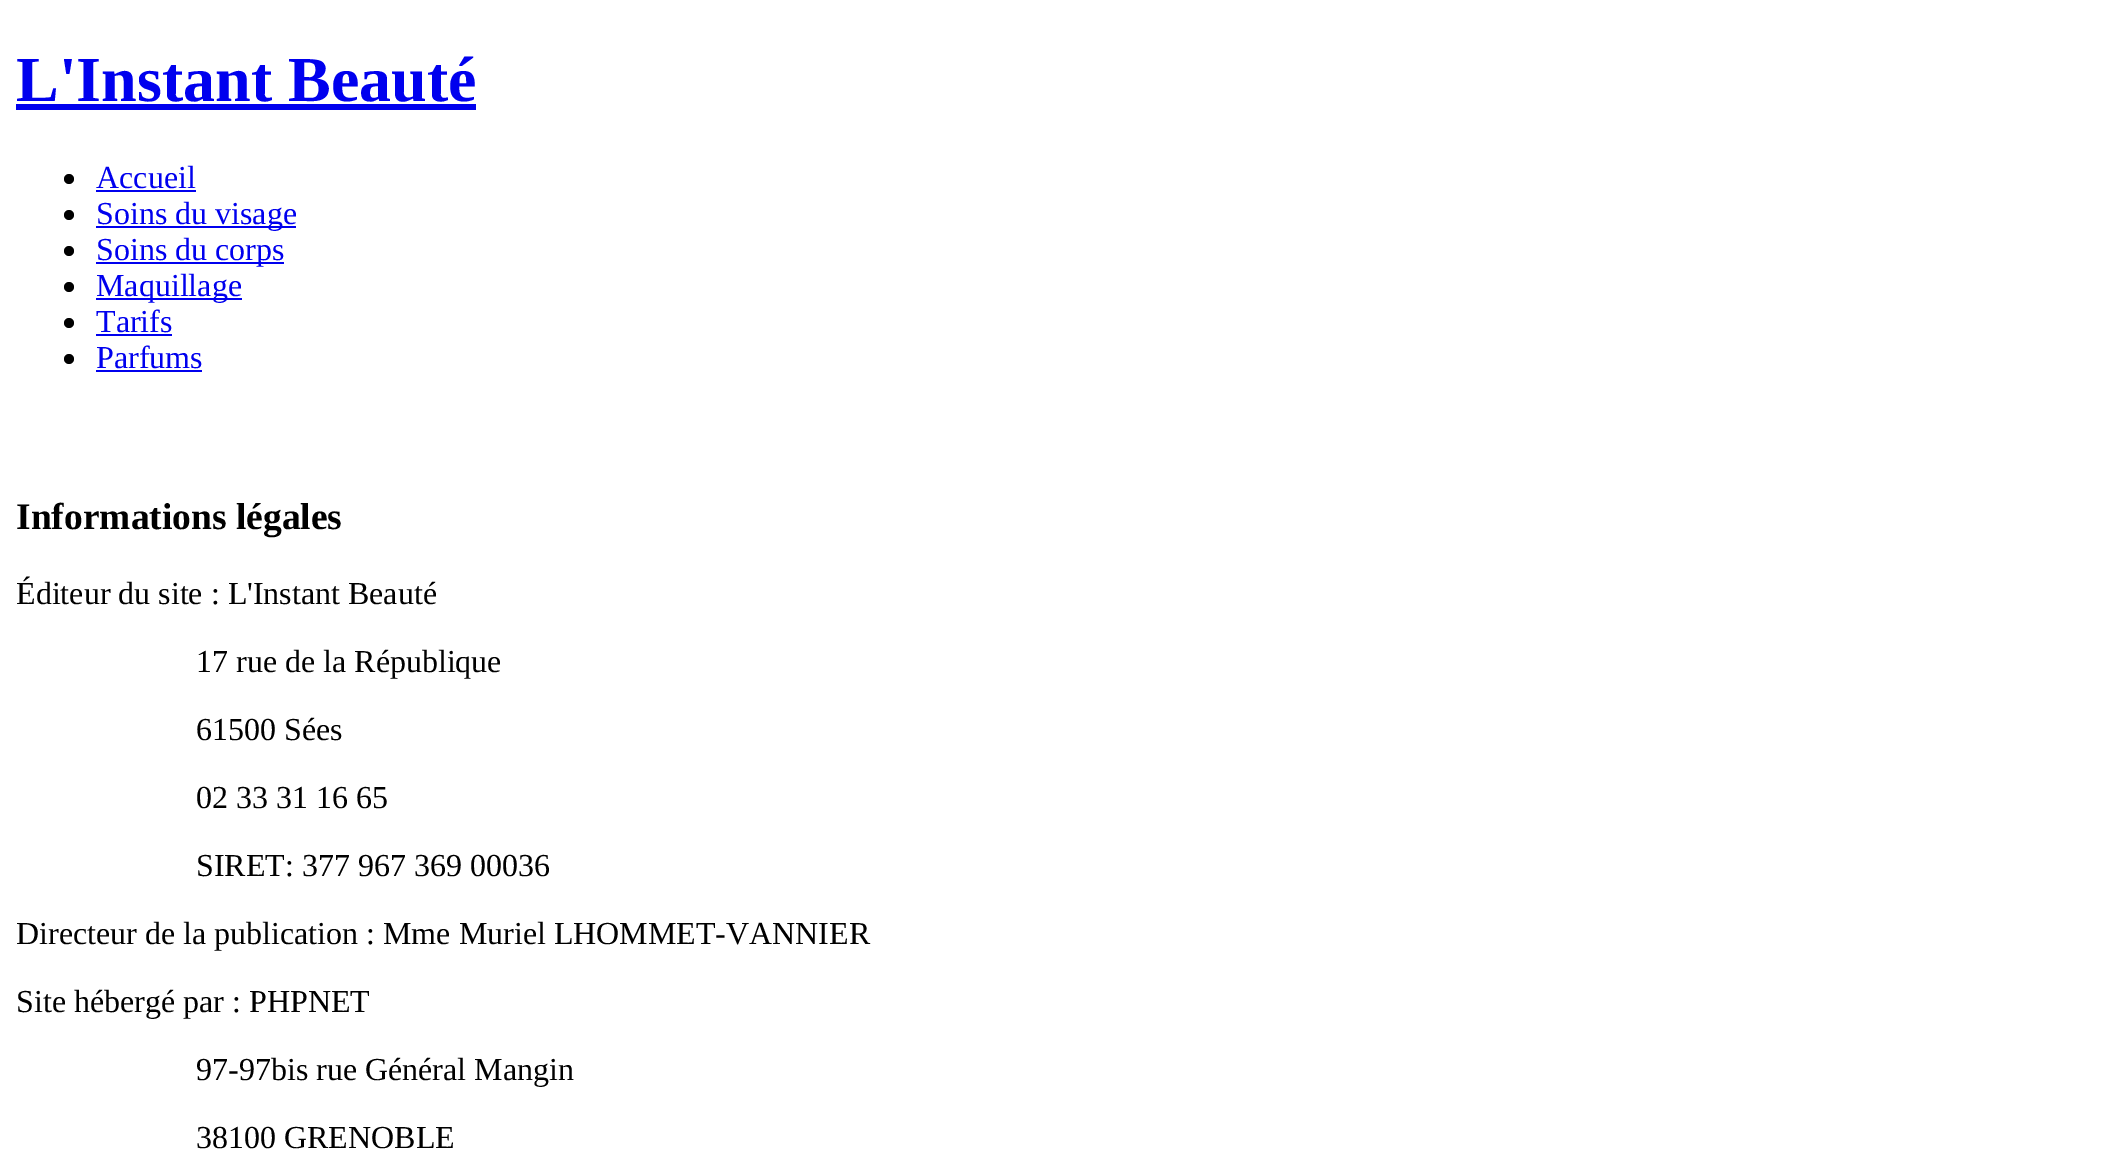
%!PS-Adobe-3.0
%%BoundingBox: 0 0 2124 1153
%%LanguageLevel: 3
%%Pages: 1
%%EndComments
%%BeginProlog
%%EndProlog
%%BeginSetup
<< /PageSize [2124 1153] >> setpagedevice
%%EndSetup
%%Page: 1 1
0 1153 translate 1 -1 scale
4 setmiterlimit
1 setgray
0 0 2124 1153 rectfill
0 0 0.933 setrgbcolor
16 104 460 6 rectfill
0 setgray
newpath 69 179 5 0 360 arc closepath fill
0 0 0.933 setrgbcolor
96 190 100 2 rectfill
0 setgray
newpath 69 215 5 0 360 arc closepath fill
0 0 0.933 setrgbcolor
96 226 200 2 rectfill
0 setgray
newpath 69 251 5 0 360 arc closepath fill
0 0 0.933 setrgbcolor
96 262 188 2 rectfill
0 setgray
newpath 69 287 5 0 360 arc closepath fill
0 0 0.933 setrgbcolor
96 298 146 2 rectfill
0 setgray
newpath 69 323 5 0 360 arc closepath fill
0 0 0.933 setrgbcolor
96 334 76 2 rectfill
0 setgray
newpath 69 359 5 0 360 arc closepath fill
0 0 0.933 setrgbcolor
96 370 106 2 rectfill
/LiberationSerif-Bold [64 0 0 -64 0 0] selectfont
16 101 moveto (L'Instant Beauté) show
/LiberationSerif-Regular [32 0 0 -32 0 0] selectfont
96 188 moveto (Accueil) show
96 224 moveto (Soins du visage) show
96 260 moveto (Soins du corps) show
96 296 moveto (Maquillage) show
96 332 moveto (Tarifs) show
96 368 moveto (Parfums) show
/LiberationSerif-Bold [37.5 0 0 -37.5 0 0] selectfont
0 setgray
16 529 moveto (Informations légales) show
/LiberationSerif-Regular [32 0 0 -32 0 0] selectfont
16 604 moveto (Éditeur du site : L'Instant Beauté) show
196 672 moveto (17 rue de la République) show
196 740 moveto (61500 Sées) show
196 808 moveto (02 33 31 16 65) show
196 876 moveto (SIRET: 377 967 369 00036) show
16 944 moveto (Directeur de la publication : Mme Muriel LHOMMET-VANNIER) show
16 1012 moveto (Site hébergé par : PHPNET) show
196 1080 moveto (97-97bis rue Général Mangin) show
196 1148 moveto (38100 GRENOBLE) show
showpage
%%EOF
